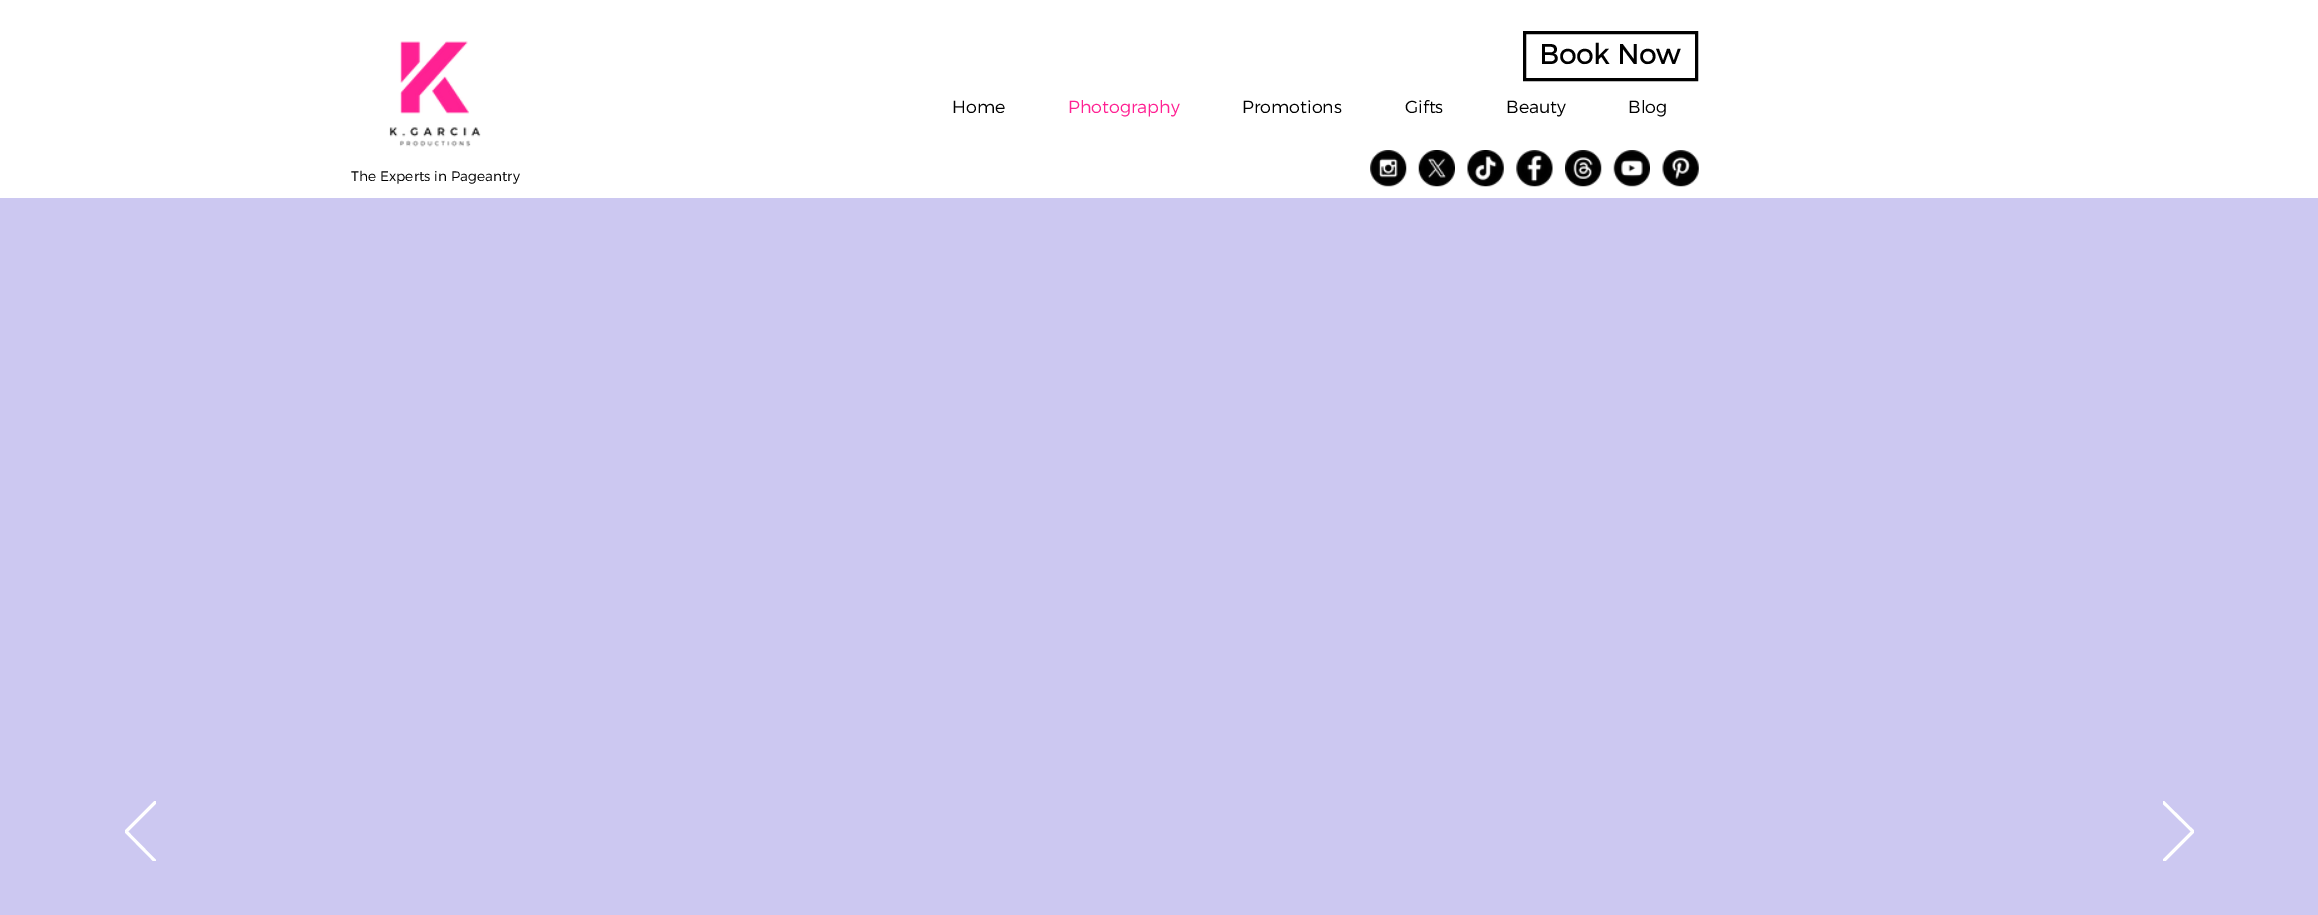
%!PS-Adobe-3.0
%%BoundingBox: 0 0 2318 915
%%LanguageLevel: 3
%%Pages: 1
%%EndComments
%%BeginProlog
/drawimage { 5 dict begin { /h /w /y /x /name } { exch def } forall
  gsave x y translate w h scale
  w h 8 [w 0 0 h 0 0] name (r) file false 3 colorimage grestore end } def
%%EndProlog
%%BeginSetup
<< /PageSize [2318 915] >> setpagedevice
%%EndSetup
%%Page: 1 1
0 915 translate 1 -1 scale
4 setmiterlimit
1 setgray
0 0 2318 915 rectfill
(images/1.raw) 389 41 92 106 drawimage
0 setgray
3 setlinewidth
1524.5 32.5 172 47 rectstroke
(images/2.raw) 1370 150 37 37 drawimage
(images/3.raw) 1418 150 37 37 drawimage
(images/4.raw) 1467 150 37 37 drawimage
(images/5.raw) 1516 150 37 37 drawimage
(images/6.raw) 1565 150 37 37 drawimage
(images/7.raw) 1613 150 37 37 drawimage
(images/8.raw) 1662 150 37 37 drawimage
0.8 0.784 0.945 setrgbcolor
0 198 2318 717 rectfill
gsave
125 801 31 60 rectclip
1 setgray
1.5 setlinewidth
newpath 155 862 moveto 125 831.5 lineto 155 801.5 lineto 156 802.5 lineto 127 831.5 lineto 156 861 lineto closepath stroke
grestore
gsave
2163 801 31 60 rectclip
1 setgray
1.5 setlinewidth
newpath 2163.5 862 moveto 2194 831.5 lineto 2163.5 801.5 lineto 2162.5 802.5 lineto 2192 831.5 lineto 2162.5 861 lineto closepath stroke
grestore
/Montserrat-Bold [27.5 0 0 -27.5 0 0] selectfont
0 setgray
1539 64 moveto (Book Now) show
/Montserrat-Light [17.5 0 0 -17.5 0 0] selectfont
952 113 moveto (Home) show
1 0.129 0.576 setrgbcolor
1068 113 moveto (Photography) show
0 setgray
1242 113 moveto (Promotions) show
1405 113 moveto (Gifts) show
1506 113 moveto (Beauty) show
1628 113 moveto (Blog) show
/Montserrat-Light [13.75 0 0 -13.75 0 0] selectfont
351 181 moveto (The Experts in Pageantry) show
showpage
%%EOF
